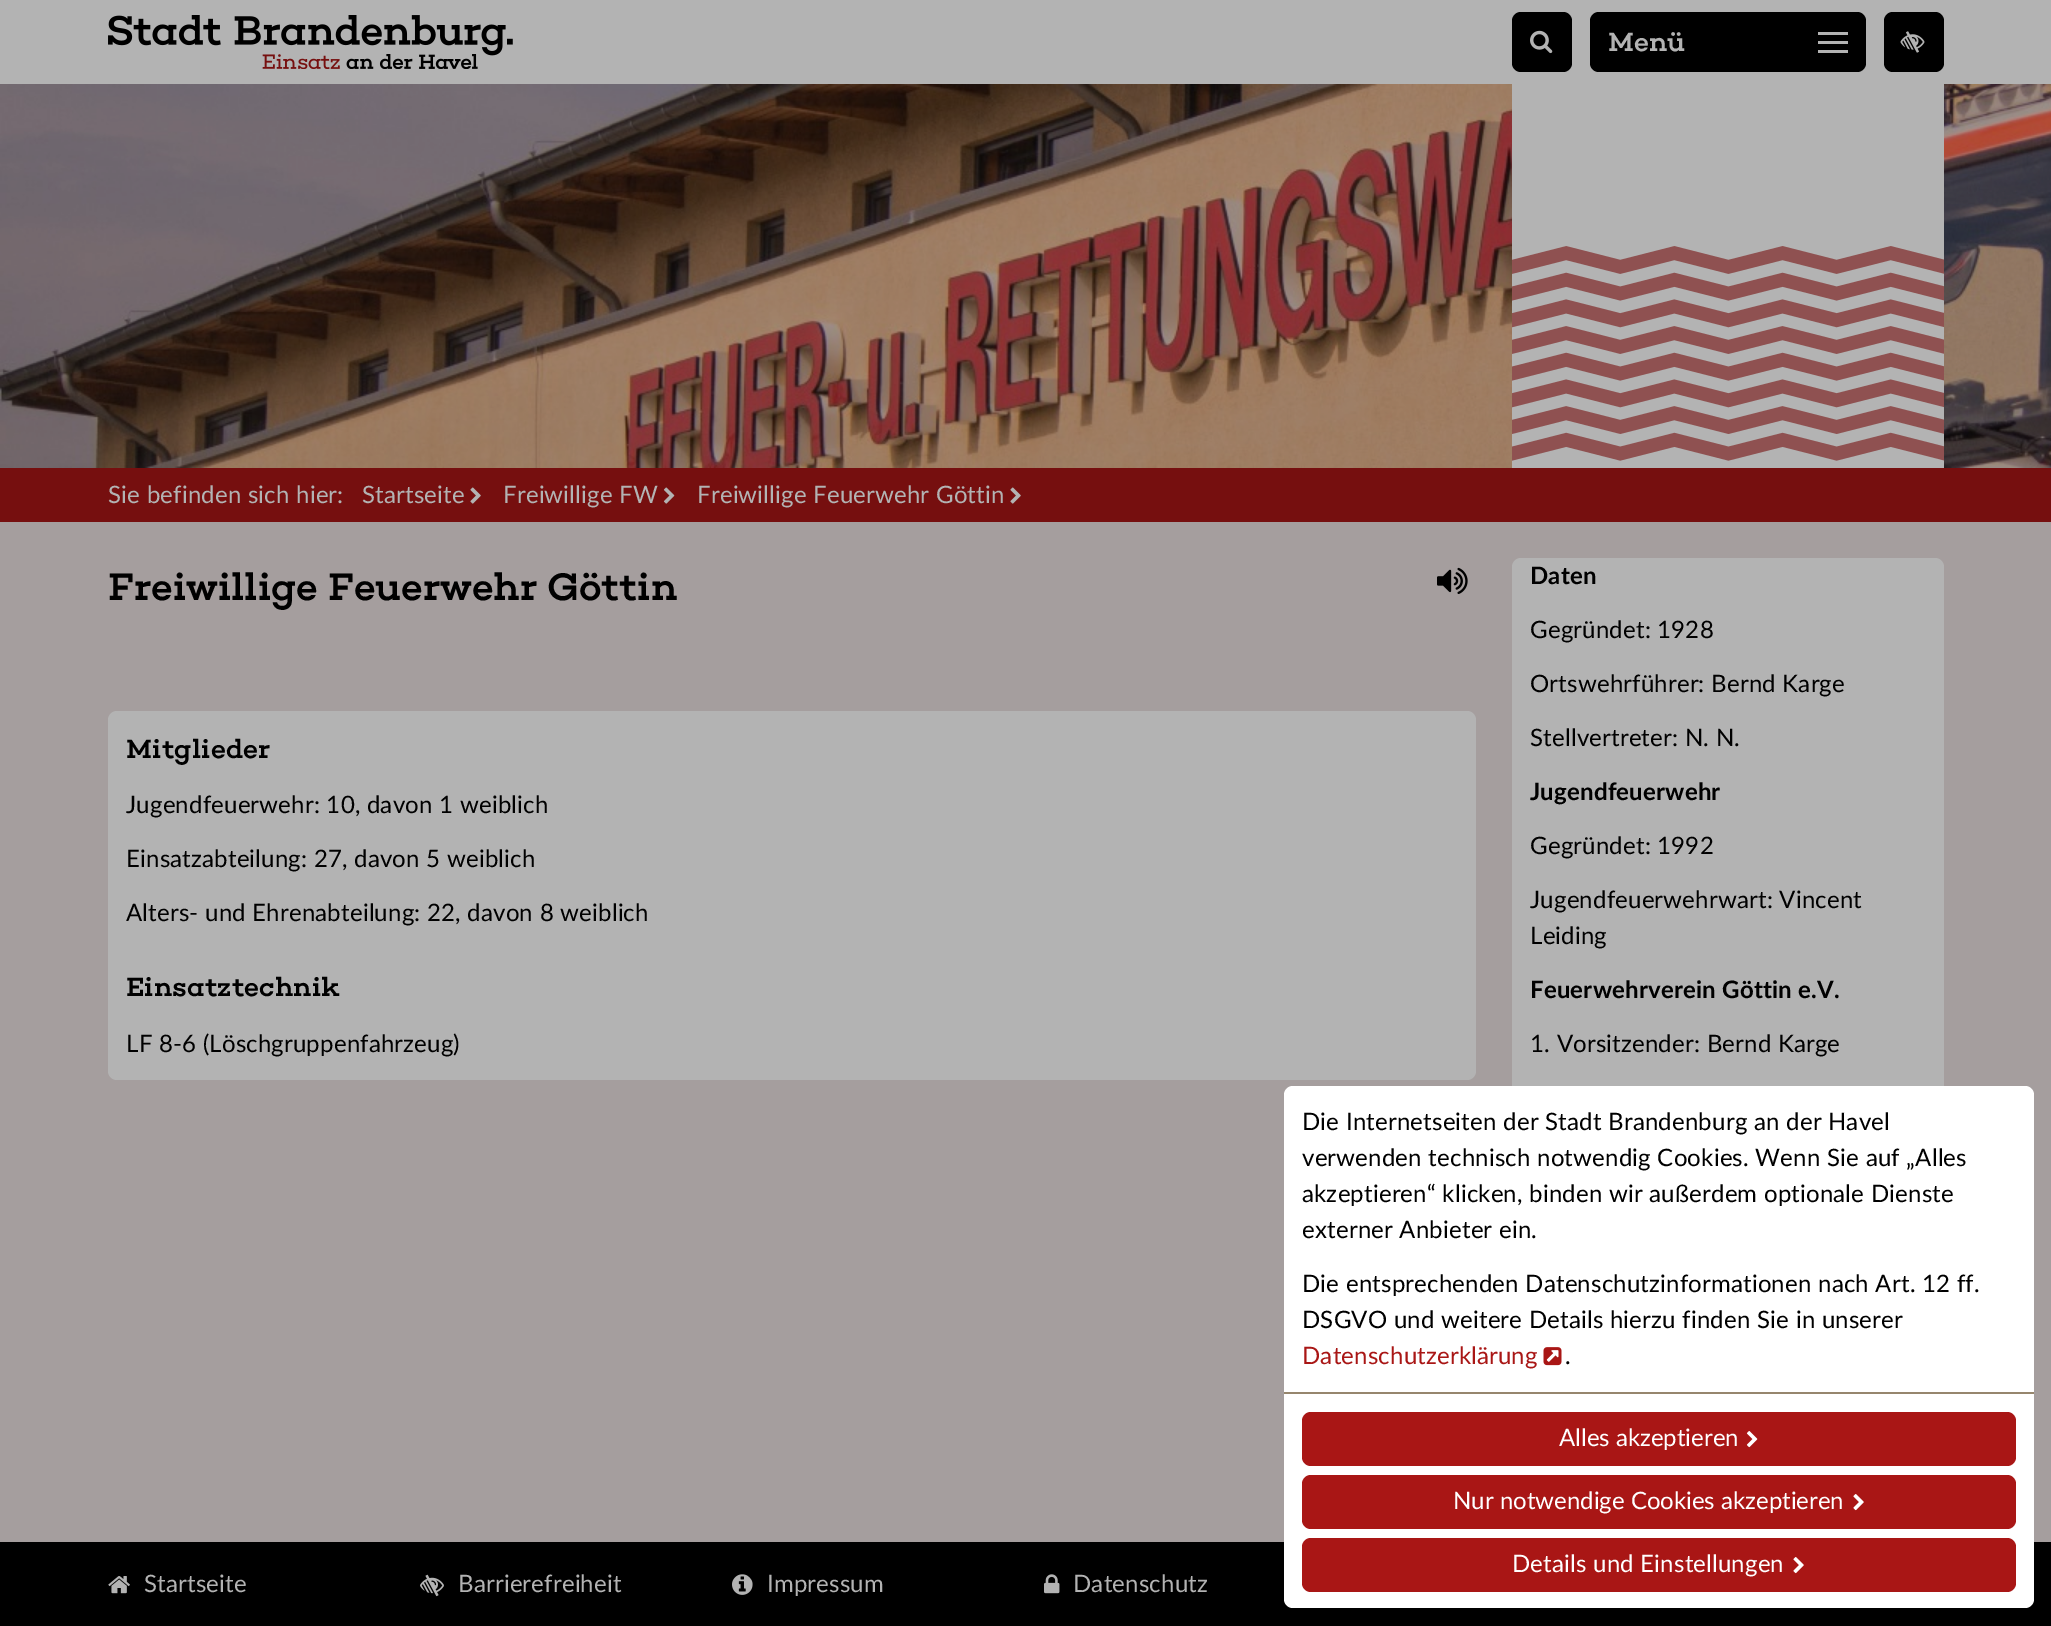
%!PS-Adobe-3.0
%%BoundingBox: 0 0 2051 1626
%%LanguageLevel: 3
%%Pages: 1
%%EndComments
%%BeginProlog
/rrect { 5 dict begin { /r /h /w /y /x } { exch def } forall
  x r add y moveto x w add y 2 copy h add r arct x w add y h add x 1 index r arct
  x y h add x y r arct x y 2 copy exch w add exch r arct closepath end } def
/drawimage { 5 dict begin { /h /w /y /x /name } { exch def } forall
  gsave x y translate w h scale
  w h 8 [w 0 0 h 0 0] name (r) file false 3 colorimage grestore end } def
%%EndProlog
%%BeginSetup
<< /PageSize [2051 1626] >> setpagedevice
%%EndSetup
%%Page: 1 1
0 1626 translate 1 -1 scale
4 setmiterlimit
0.647 0.62 0.62 setrgbcolor
0 0 2051 1626 rectfill
0.702 setgray
0 0 2051 84 rectfill
(images/1.raw) 108 15 405 54 drawimage
0 setgray
1512 12 60 60 9 rrect fill
(images/2.raw) 1530 30 23 24 drawimage
1590 12 276 60 9 rrect fill
0.702 setgray
1818 32 30 3 rectfill
1818 41 30 3 rectfill
1818 50 30 3 rectfill
0 setgray
1884 12 60 60 9 rrect fill
(images/3.raw) 1900 31 25 22 drawimage
(images/4.raw) 0 84 2051 384 drawimage
0.702 setgray
1512 84 432 384 rectfill
(images/5.raw) 1512 246 432 215 drawimage
0.463 0.059 0.059 setrgbcolor
0 468 2051 54 rectfill
(images/6.raw) 470 487 11 17 drawimage
(images/7.raw) 663 487 12 17 drawimage
(images/6.raw) 1010 487 11 17 drawimage
(images/8.raw) 1437 567 31 27 drawimage
0.702 setgray
108 711 1368 369 9 rrect fill
1512 558 432 666 9 rrect fill
1 setgray
newpath 1293 1086 moveto 2025 1086 lineto 2030 1086 2034 1090 2034 1095 curveto 2034 1392 lineto 1284 1392 lineto 1284 1095 lineto 1284 1090 1288 1086 1293 1086 curveto closepath fill
(images/9.raw) 1543 1347 19 19 drawimage
0 setgray
0 1542 2051 84 rectfill
1 setgray
newpath 1284 1392 moveto 2034 1392 lineto 2034 1599 lineto 2034 1604 2030 1608 2025 1608 curveto 1293 1608 lineto 1288 1608 1284 1604 1284 1599 curveto closepath fill
0.588 0.525 0.427 setrgbcolor
1284 1392 750 2 rectfill
0.663 0.086 0.082 setrgbcolor
1302 1412 714 54 9 rrect fill
(images/10.raw) 1746 1431 12 17 drawimage
1302 1475 714 54 9 rrect fill
(images/11.raw) 1853 1494 11 17 drawimage
1302 1538 714 54 9 rrect fill
(images/11.raw) 1793 1557 11 17 drawimage
(images/12.raw) 108 1576 22 18 drawimage
(images/13.raw) 420 1574 24 23 drawimage
(images/14.raw) 732 1574 21 21 drawimage
(images/15.raw) 1044 1574 16 20 drawimage
/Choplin-Medium [27 0 0 -27 0 0] selectfont
0.702 setgray
1608 51 moveto (Menü) show
/Lato-Regular [24 0 0 -24 0 0] selectfont
108 503 moveto 0.25 0 32 0.18 0 (Sie befinden sich hier:) awidthshow
362 503 moveto 0.18 0 (Startseite) ashow
503 503 moveto 0.25 0 32 0.18 0 (Freiwillige FW) awidthshow
697 503 moveto 0.25 0 32 0.18 0 (Freiwillige Feuerwehr Göttin) awidthshow
/Choplin-Medium [39 0 0 -39 0 0] selectfont
0 setgray
108 600 moveto (Freiwillige Feuerwehr Göttin) show
/Choplin-Medium [27 0 0 -27 0 0] selectfont
126 758 moveto 0.18 0 (Mitglieder) ashow
/Lato-Regular [24 0 0 -24 0 0] selectfont
126 813 moveto 0.25 0 32 0.18 0 (Jugendfeuerwehr: 10, davon 1 weiblich) awidthshow
126 867 moveto 0.25 0 32 0.18 0 (Einsatzabteilung: 27, davon 5 weiblich) awidthshow
126 921 moveto 0.25 0 32 0.18 0 (Alters- und Ehrenabteilung: 22, davon 8 weiblich) awidthshow
/Choplin-Medium [27 0 0 -27 0 0] selectfont
126 996 moveto 0.18 0 (Einsatztechnik) ashow
/Lato-Regular [24 0 0 -24 0 0] selectfont
126 1052 moveto 0.25 0 32 0.18 0 (LF 8-6 \(Löschgruppenfahrzeug\)) awidthshow
/Lato-Bold [24 0 0 -24 0 0] selectfont
1530 584 moveto 0.18 0 (Daten) ashow
/Lato-Regular [24 0 0 -24 0 0] selectfont
1530 638 moveto 0.25 0 32 0.18 0 (Gegründet: 1928) awidthshow
1530 692 moveto 0.25 0 32 0.18 0 (Ortswehrführer: Bernd Karge) awidthshow
1530 746 moveto 0.25 0 32 0.18 0 (Stellvertreter: N. N.) awidthshow
/Lato-Bold [24 0 0 -24 0 0] selectfont
1530 800 moveto 0.18 0 (Jugendfeuerwehr) ashow
/Lato-Regular [24 0 0 -24 0 0] selectfont
1530 854 moveto 0.25 0 32 0.18 0 (Gegründet: 1992) awidthshow
1530 908 moveto 0.25 0 32 0.18 0 (Jugendfeuerwehrwart: Vincent) awidthshow
1530 944 moveto 0.18 0 (Leiding) ashow
/Lato-Bold [24 0 0 -24 0 0] selectfont
1530 998 moveto 0.25 0 32 0.18 0 (Feuerwehrverein Göttin e.V.) awidthshow
/Lato-Regular [24 0 0 -24 0 0] selectfont
1530 1052 moveto 0.25 0 32 0.18 0 (1. Vorsitzender: Bernd Karge) awidthshow
1302 1130 moveto 0.25 0 32 0.18 0 (Die Internetseiten der Stadt Brandenburg an der Havel) awidthshow
1302 1166 moveto 0.25 0 32 0.18 0 (verwenden technisch notwendig Cookies. Wenn Sie auf „Alles) awidthshow
1302 1202 moveto 0.25 0 32 0.18 0 (akzeptieren“ klicken, binden wir außerdem optionale Dienste) awidthshow
1302 1238 moveto 0.25 0 32 0.18 0 (externer Anbieter ein.) awidthshow
1302 1292 moveto 0.25 0 32 0.18 0 (Die entsprechenden Datenschutzinformationen nach Art. 12 ff.) awidthshow
1302 1328 moveto 0.25 0 32 0.18 0 (DSGVO und weitere Details hierzu finden Sie in unserer) awidthshow
0.663 0.086 0.082 setrgbcolor
1302 1364 moveto 0.18 0 (Datenschutzerklärung) ashow
0 setgray
1565 1364 moveto 0.18 0 (.) ashow
1 setgray
1559 1446 moveto (Alles akzeptieren) show
1453 1509 moveto (Nur notwendige Cookies akzeptieren) show
1512 1572 moveto 0.25 0 32 0.18 0 (Details und Einstellungen) awidthshow
0.702 setgray
144 1592 moveto 0.18 0 (Startseite) ashow
458 1592 moveto 0.18 0 (Barrierefreiheit) ashow
767 1592 moveto 0.18 0 (Impressum) ashow
1073 1592 moveto 0.18 0 (Datenschutz) ashow
showpage
%%EOF
